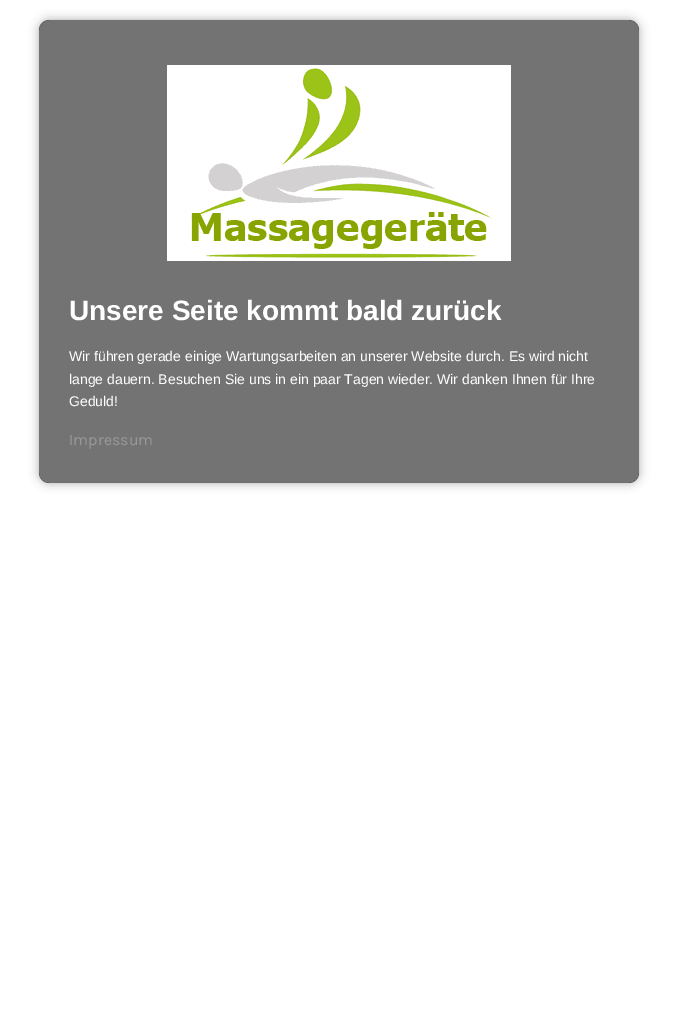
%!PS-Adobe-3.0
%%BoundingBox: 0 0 678 1030
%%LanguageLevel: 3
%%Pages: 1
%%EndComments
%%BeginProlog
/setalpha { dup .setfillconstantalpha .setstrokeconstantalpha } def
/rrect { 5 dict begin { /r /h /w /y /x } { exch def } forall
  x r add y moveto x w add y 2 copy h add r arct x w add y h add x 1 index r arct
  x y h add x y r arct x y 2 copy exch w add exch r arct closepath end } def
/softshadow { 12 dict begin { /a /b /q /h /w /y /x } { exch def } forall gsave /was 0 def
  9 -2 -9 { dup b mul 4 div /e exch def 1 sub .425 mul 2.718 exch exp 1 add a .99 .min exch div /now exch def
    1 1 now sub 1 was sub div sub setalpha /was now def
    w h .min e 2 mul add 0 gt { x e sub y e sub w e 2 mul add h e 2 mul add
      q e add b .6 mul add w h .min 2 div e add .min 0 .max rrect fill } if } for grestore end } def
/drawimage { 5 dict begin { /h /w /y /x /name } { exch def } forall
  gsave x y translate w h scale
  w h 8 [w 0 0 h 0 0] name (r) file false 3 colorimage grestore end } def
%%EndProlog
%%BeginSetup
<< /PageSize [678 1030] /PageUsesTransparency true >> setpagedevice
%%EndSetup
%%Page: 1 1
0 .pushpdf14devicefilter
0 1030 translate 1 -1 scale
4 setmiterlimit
1 setgray
0 0 678 1030 rectfill
gsave
newpath 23 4 moveto 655 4 lineto 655 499 lineto 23 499 lineto closepath 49 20 moveto 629 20 lineto 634.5 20 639 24.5 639 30 curveto 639 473 lineto 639 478.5 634.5 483 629 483 curveto 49 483 lineto 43.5 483 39 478.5 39 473 curveto 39 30 lineto 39 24.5 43.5 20 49 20 curveto closepath eoclip newpath
0 setgray
39 20 600 463 10 5 0.33 softshadow
grestore
0.55 setalpha
0 setgray
39 20 600 463 10 rrect fill
1 setalpha
(images/1.raw) 167 65 344 196 drawimage
/LiberationSans-Bold [28 0 0 -28 0 0] selectfont
1 setgray
69 320 moveto (Unsere Seite kommt bald zurück) show
/LiberationSans-Regular [14 0 0 -14 0 0] selectfont
69 361 moveto (Wir führen gerade einige Wartungsarbeiten an unserer Website durch. Es wird nicht) show
69 384 moveto (lange dauern. Besuchen Sie uns in ein paar Tagen wieder. Wir danken Ihnen für Ihre) show
69 406 moveto (Geduld!) show
/Karla-Regular [16 0 0 -16 0 0] selectfont
0.6 setgray
69 445 moveto (Impressum) show
.poppdf14devicefilter showpage
%%EOF
